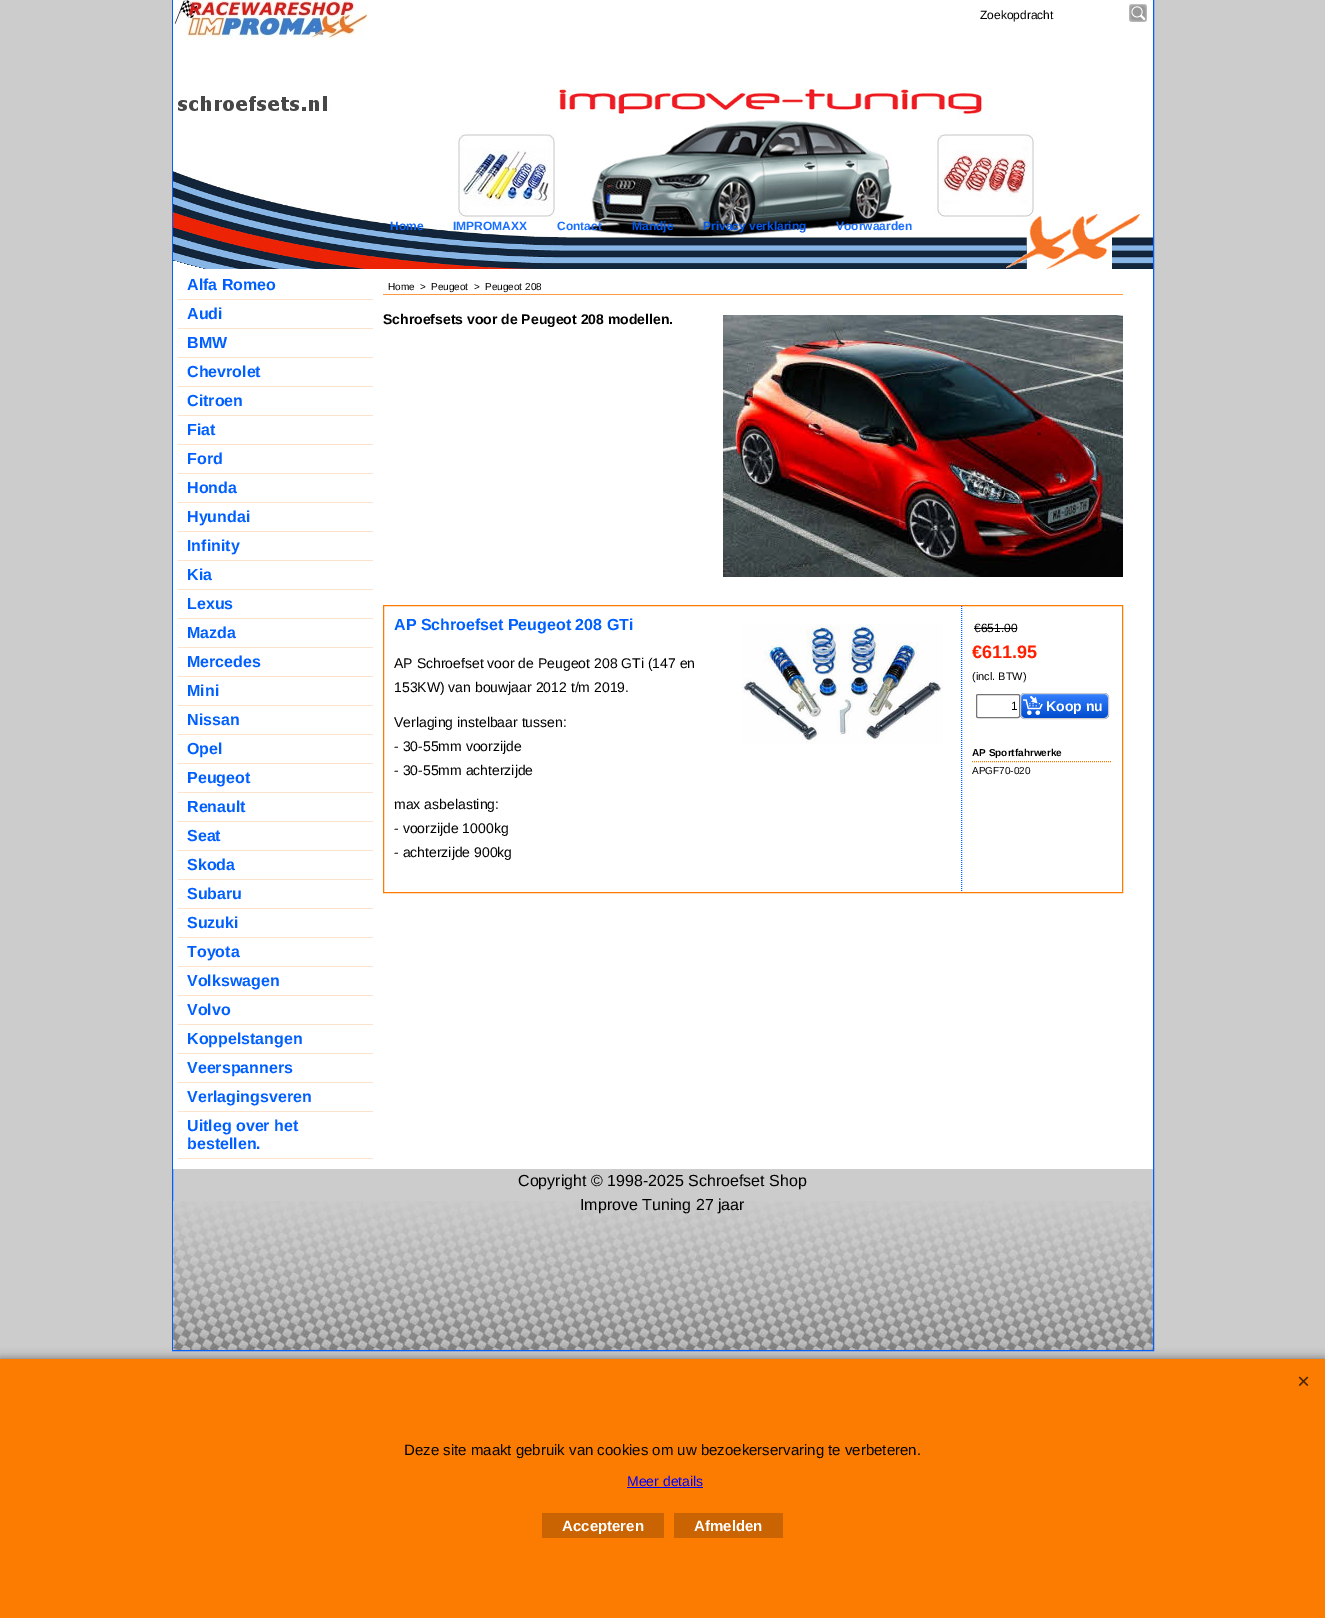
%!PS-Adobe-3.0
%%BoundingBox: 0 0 1325 1618
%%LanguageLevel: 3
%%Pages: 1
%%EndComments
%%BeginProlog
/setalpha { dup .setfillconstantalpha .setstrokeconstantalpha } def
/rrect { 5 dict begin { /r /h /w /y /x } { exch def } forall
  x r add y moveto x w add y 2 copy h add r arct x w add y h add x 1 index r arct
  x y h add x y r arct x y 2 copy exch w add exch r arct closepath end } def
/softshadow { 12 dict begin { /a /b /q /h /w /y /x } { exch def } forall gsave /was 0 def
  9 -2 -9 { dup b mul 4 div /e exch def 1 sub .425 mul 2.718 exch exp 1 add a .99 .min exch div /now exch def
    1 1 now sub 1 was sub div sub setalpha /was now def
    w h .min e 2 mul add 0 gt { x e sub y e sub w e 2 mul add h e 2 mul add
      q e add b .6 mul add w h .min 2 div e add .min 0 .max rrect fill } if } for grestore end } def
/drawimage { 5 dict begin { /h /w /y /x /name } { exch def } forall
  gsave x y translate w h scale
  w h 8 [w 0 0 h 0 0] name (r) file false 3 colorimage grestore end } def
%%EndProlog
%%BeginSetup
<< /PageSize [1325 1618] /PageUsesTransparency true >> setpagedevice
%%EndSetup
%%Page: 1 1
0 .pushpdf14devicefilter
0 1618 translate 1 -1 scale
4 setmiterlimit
0.8 setgray
0 0 1325 1618 rectfill
0 0.373 1 setrgbcolor
172.5 -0.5 981 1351 rectstroke
1 setgray
173 0 980 88 rectfill
(images/1.raw) 174 0 195 40 drawimage
(images/2.raw) 1129 4 18 18 drawimage
(images/3.raw) 173 88 980 181 drawimage
173 269 980 900 rectfill
0.992 0.89 0.796 setrgbcolor
178 299 195 1 rectfill
178 328 195 1 rectfill
178 357 195 1 rectfill
178 386 195 1 rectfill
178 415 195 1 rectfill
178 444 195 1 rectfill
178 473 195 1 rectfill
178 502 195 1 rectfill
178 531 195 1 rectfill
178 560 195 1 rectfill
178 589 195 1 rectfill
178 618 195 1 rectfill
178 647 195 1 rectfill
178 676 195 1 rectfill
178 705 195 1 rectfill
178 734 195 1 rectfill
178 763 195 1 rectfill
178 792 195 1 rectfill
178 821 195 1 rectfill
178 850 195 1 rectfill
178 879 195 1 rectfill
178 908 195 1 rectfill
178 937 195 1 rectfill
178 966 195 1 rectfill
178 995 195 1 rectfill
178 1024 195 1 rectfill
178 1053 195 1 rectfill
178 1082 195 1 rectfill
178 1111 195 1 rectfill
178 1158 195 1 rectfill
0.984 0.604 0.251 setrgbcolor
383 294 740 1 rectfill
(images/4.raw) 723 315 400 262 drawimage
0.988 0.486 0.004 setrgbcolor
383.5 605.5 739 287 rectstroke
0 0.373 1 setrgbcolor
[1 1] 0 setdash
newpath 961.5 606 moveto 961.5 892 lineto stroke
(images/5.raw) 742 624 201 120 drawimage
0 setgray
974 628 43 1 rectfill
0.463 setgray
[] 0 setdash
976.5 694.5 43 23 1.5 rrect stroke
0 0.373 1 setrgbcolor
1020 693 89 26 5 rrect fill
gsave
1020 693 89 26 5 rrect clip newpath
0.2 setalpha
gsave newpath 1020 694 moveto 1109 694 lineto 1109 718 lineto 1020 718 lineto closepath clip newpath
<< /ShadingType 2 /ColorSpace /DeviceRGB /Coords [1021 694 1021 718] /Extend [true true] /Function << /FunctionType 2 /Domain [0 1] /C0 [1 1 1] /C1 [0 0 0] /N 1 >> >> shfill grestore
grestore
0.8 setgray
1020.5 693.5 88 25 4.5 rrect stroke
(images/6.raw) 1023 696 20 19 drawimage
0.988 0.486 0.004 setrgbcolor
[1 1] 0 setdash
newpath 972 761.5 moveto 1112 761.5 lineto stroke
(images/7.raw) 173 1201 980 149 drawimage
0.4 setgray
0 1359 1325 259 0 5 1 softshadow
0.988 0.486 0.004 setrgbcolor
0 1359 1325 259 rectfill
(images/8.raw) 1298 1376 11 10 drawimage
0 0 1 setrgbcolor
627 1487 76 1 rectfill
0.792 0.388 0.004 setrgbcolor
542 1513 122 25 rectfill
674 1513 109 25 rectfill
/LiberationSans-Regular [12 0 0 -12 0 0] selectfont
0 setgray
980 19 moveto (Zoekopdracht) show
/LiberationSans-Bold [12 0 0 -12 0 0] selectfont
0.051 0.392 0.961 setrgbcolor
390 230 moveto (Home) show
0.098 0.435 1 setrgbcolor
453 230 moveto (IMPROMAXX) show
557 230 moveto (Contact) show
0.016 0.349 0.914 setrgbcolor
632 230 moveto (Mandje) show
703 230 moveto (Privacy verklaring) show
0.098 0.435 1 setrgbcolor
836 230 moveto (Voorwaarden) show
/LiberationSans-Bold [16 0 0 -16 0 0] selectfont
0 0.373 1 setrgbcolor
187 290 moveto (Alfa Romeo) show
187 319 moveto (Audi) show
187 348 moveto (BMW) show
187 377 moveto (Chevrolet) show
187 406 moveto (Citroen) show
187 435 moveto (Fiat) show
187 464 moveto (Ford) show
187 493 moveto (Honda) show
187 522 moveto (Hyundai) show
187 551 moveto (Infinity) show
187 580 moveto (Kia) show
187 609 moveto (Lexus) show
187 638 moveto (Mazda) show
187 667 moveto (Mercedes) show
187 696 moveto (Mini) show
187 725 moveto (Nissan) show
187 754 moveto (Opel) show
187 783 moveto (Peugeot) show
187 812 moveto (Renault) show
187 841 moveto (Seat) show
187 870 moveto (Skoda) show
187 899 moveto (Subaru) show
187 928 moveto (Suzuki) show
187 957 moveto (Toyota) show
187 986 moveto (Volkswagen) show
187 1015 moveto (Volvo) show
187 1044 moveto (Koppelstangen) show
187 1073 moveto (Veerspanners) show
187 1102 moveto (Verlagingsveren) show
187 1131 moveto (Uitleg over het) show
187 1149 moveto (bestellen.) show
/LiberationSans-Regular [10 0 0 -10 0 0] selectfont
0 setgray
388 290 moveto (Home) show
420 290 moveto (>) show
431 290 moveto (Peugeot) show
474 290 moveto (>) show
485 290 moveto (Peugeot 208) show
/LiberationSans-Bold [14 0 0 -14 0 0] selectfont
383 324 moveto (Schroefsets voor de Peugeot 208 modellen.) show
/LiberationSans-Bold [16 0 0 -16 0 0] selectfont
0 0.373 1 setrgbcolor
394 630 moveto (AP Schroefset Peugeot 208 GTi) show
/LiberationSans-Regular [14 0 0 -14 0 0] selectfont
0 setgray
394 668 moveto (AP Schroefset voor de Peugeot 208 GTi \(147 en) show
394 692 moveto (153KW\) van bouwjaar 2012 t/m 2019.) show
394 727 moveto (Verlaging instelbaar tussen:) show
394 751 moveto (- 30-55mm voorzijde) show
394 775 moveto (- 30-55mm achterzijde) show
394 809 moveto (max asbelasting:) show
394 833 moveto (- voorzijde 1000kg) show
394 857 moveto (- achterzijde 900kg) show
/LiberationSans-Regular [12 0 0 -12 0 0] selectfont
974 632 moveto (€651.00) show
/LiberationSans-Bold [18 0 0 -18 0 0] selectfont
1 0.122 0 setrgbcolor
972 658 moveto (€611.95) show
/LiberationSans-Regular [11 0 0 -11 0 0] selectfont
0 setgray
972 680 moveto (\(incl. BTW\)) show
/LiberationSans-Regular [12 0 0 -12 0 0] selectfont
1011 710 moveto (1) show
/LiberationSans-Bold [14 0 0 -14 0 0] selectfont
1 setgray
1046 711 moveto (Koop nu) show
/LiberationSans-Bold [10 0 0 -10 0 0] selectfont
0 setgray
972 756 moveto (AP Sportfahrwerke) show
/LiberationSans-Regular [10 0 0 -10 0 0] selectfont
972 774 moveto (APGF70-020) show
/LiberationSans-Regular [16 0 0 -16 0 0] selectfont
518 1186 moveto (Copyright © 1998-2025 Schroefset Shop) show
580 1210 moveto (Improve Tuning 27 jaar) show
/LiberationSans-Regular [15 0 0 -15 0 0] selectfont
404 1455 moveto (Deze site maakt gebruik van cookies om uw bezoekerservaring te verbeteren.) show
/LiberationSans-Regular [14 0 0 -14 0 0] selectfont
0 0 1 setrgbcolor
627 1486 moveto (Meer details) show
/LiberationSans-Bold [15 0 0 -15 0 0] selectfont
1 setgray
562 1531 moveto (Accepteren) show
694 1531 moveto (Afmelden) show
.poppdf14devicefilter showpage
%%EOF
